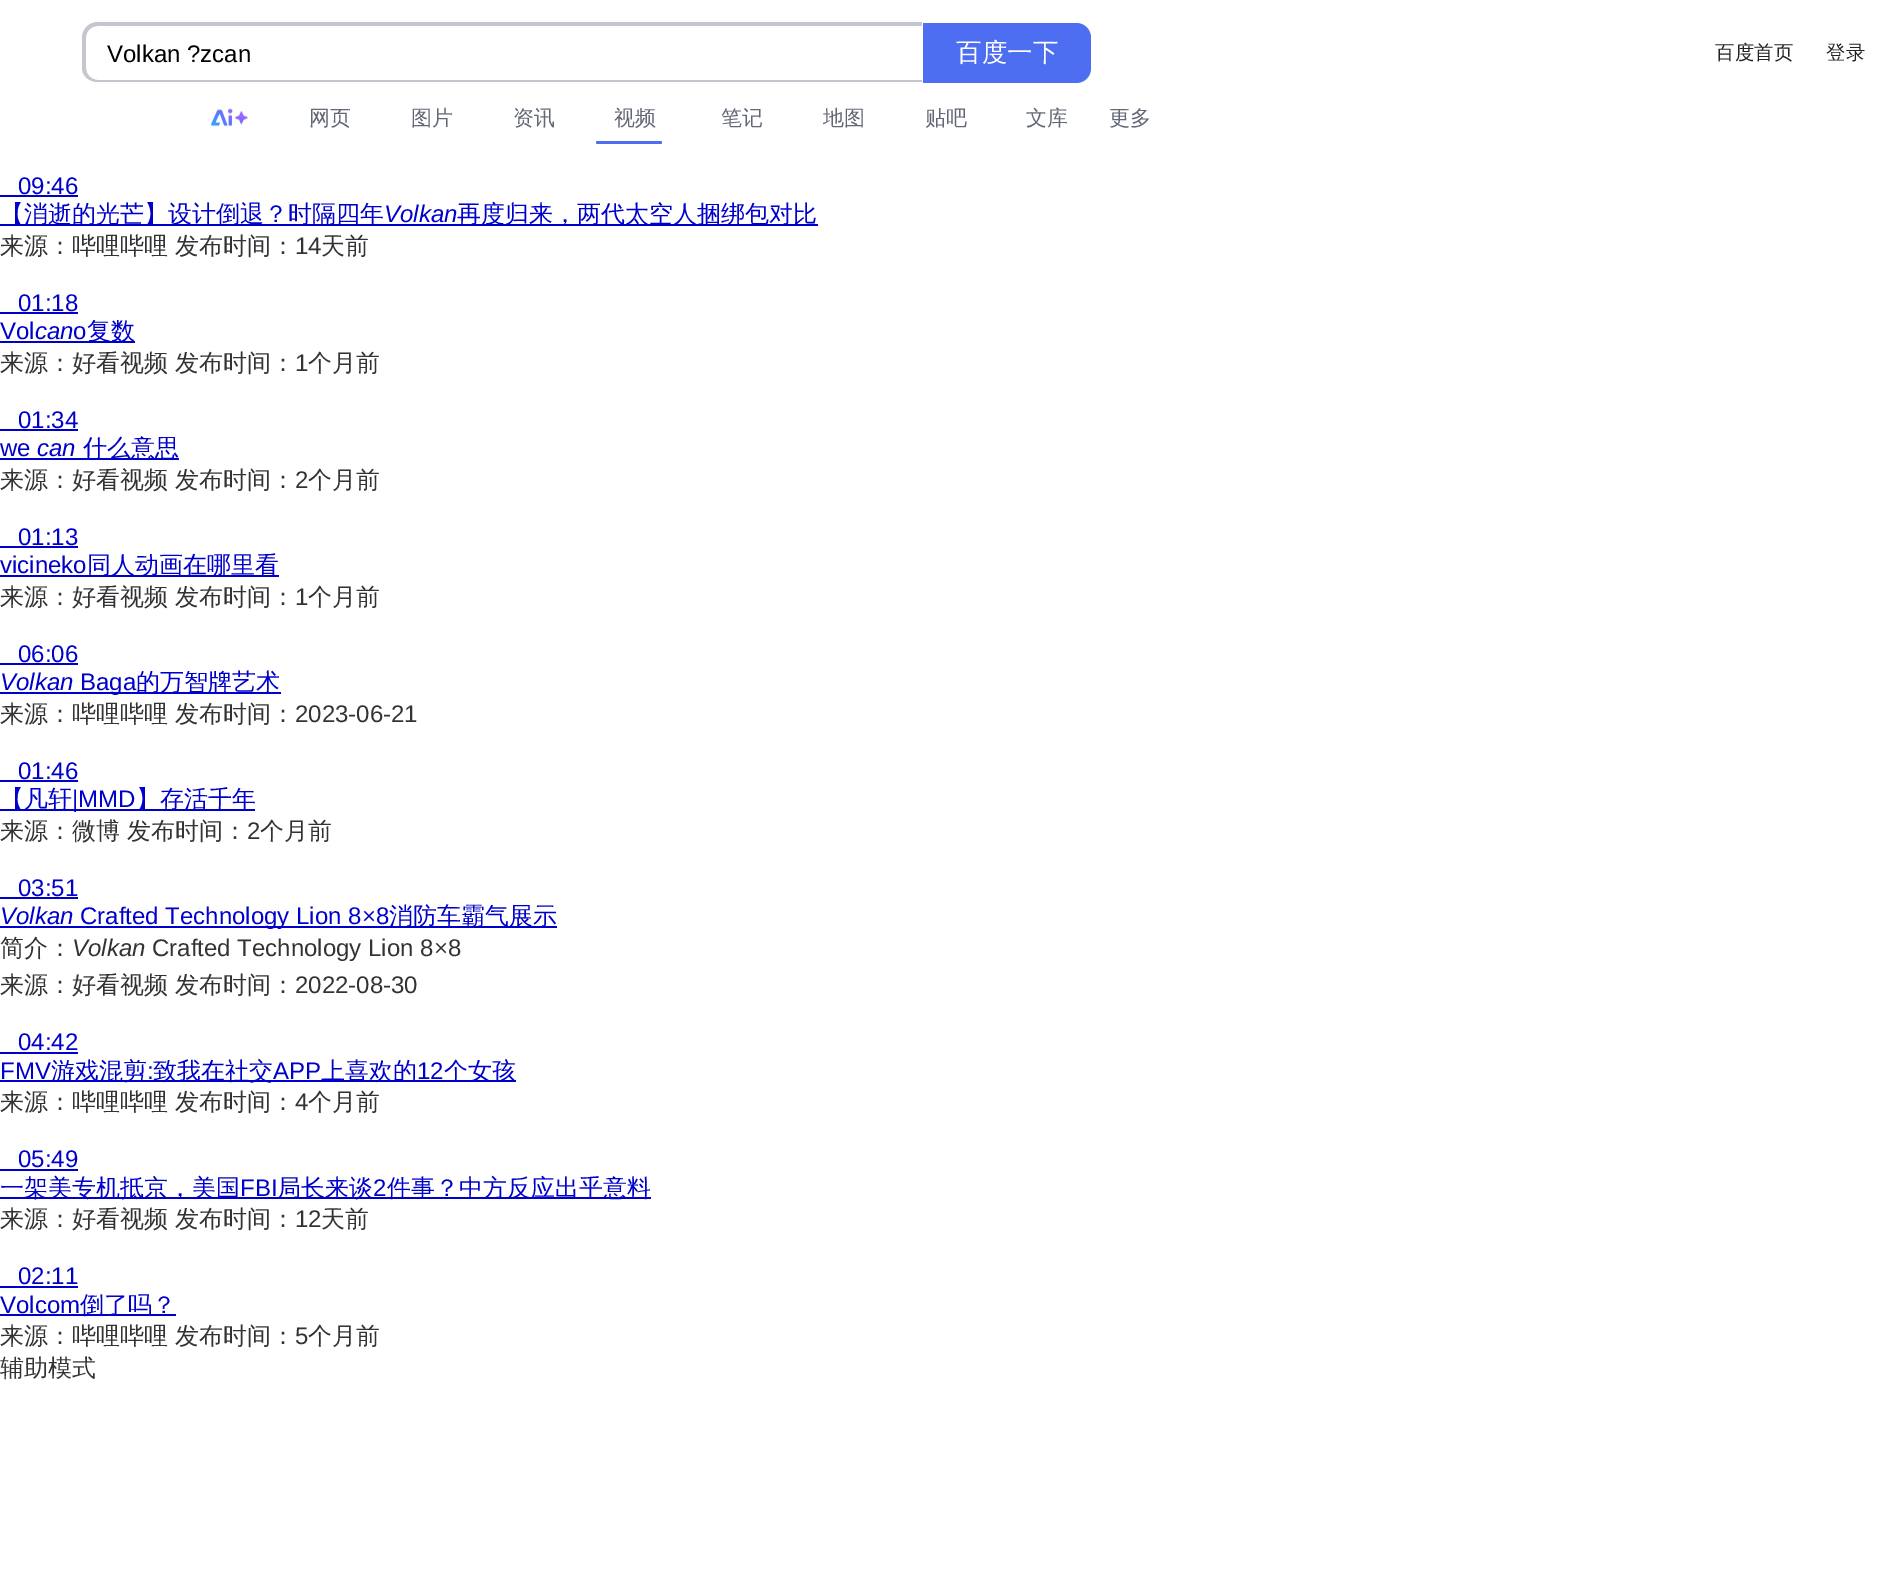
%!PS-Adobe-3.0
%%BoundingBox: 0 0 1900 1592
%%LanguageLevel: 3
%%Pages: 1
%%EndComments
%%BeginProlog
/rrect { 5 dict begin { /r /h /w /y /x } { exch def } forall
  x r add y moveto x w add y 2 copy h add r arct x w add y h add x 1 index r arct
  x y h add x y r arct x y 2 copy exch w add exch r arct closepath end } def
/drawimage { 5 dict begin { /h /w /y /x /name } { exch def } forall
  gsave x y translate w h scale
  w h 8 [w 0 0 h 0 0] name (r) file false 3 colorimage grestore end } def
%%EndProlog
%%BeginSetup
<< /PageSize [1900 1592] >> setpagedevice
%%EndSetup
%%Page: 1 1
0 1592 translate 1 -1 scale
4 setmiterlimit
1 setgray
0 0 1900 1592 rectfill
0.769 0.78 0.808 setrgbcolor
newpath 98 22 moveto 922 22 lineto 922 82 lineto 98 82 lineto 89 82 82 76 82 68 curveto 82 38 lineto 82 29 89 22 98 22 curveto closepath 98 26 moveto 922 26 lineto 922 80 lineto 98 80 lineto 91 80 86 74 86 68 curveto 86 38 lineto 86 31 91 26 98 26 curveto closepath eofill
0.306 0.431 0.949 setrgbcolor
newpath 923 23 moveto 1076 23 lineto 1084.5 23 1091 29.5 1091 38 curveto 1091 68 lineto 1091 76.5 1084.5 83 1076 83 curveto 923 83 lineto closepath fill
(images/1.raw) 211 108 37 19 drawimage
596 141 66 3 1.5 rrect fill
0 0 0.8 setrgbcolor
0 195 78 2 rectfill
0 224 818 2 rectfill
0 312 78 2 rectfill
0 341 135 2 rectfill
0 429 78 2 rectfill
0 458 179 2 rectfill
0 546 78 2 rectfill
0 575 279 2 rectfill
0 663 78 2 rectfill
0 692 281 2 rectfill
0 780 78 2 rectfill
0 809 255 2 rectfill
0 897 78 2 rectfill
0 926 557 2 rectfill
0 1052 78 2 rectfill
0 1080 516 2 rectfill
0 1169 78 2 rectfill
0 1197 651 2 rectfill
0 1286 78 2 rectfill
0 1314 176 2 rectfill
/LiberationSans-Regular [24 0 0 -24 0 0] selectfont
0 setgray
107 62 moveto (Volkan ?zcan) show
/WenQuanYiZenHei-Medium [25.5 0 0 -25.5 0 0] selectfont
1 setgray
956 61 moveto (百度一下) show
/WenQuanYiZenHei-Medium [19.5 0 0 -19.5 0 0] selectfont
0.133 setgray
1715 59 moveto (百度首页) show
1826 59 moveto (登录) show
/WenQuanYiZenHei-Medium [21 0 0 -21 0 0] selectfont
0.384 0.4 0.459 setrgbcolor
309 125 moveto (网页) show
411 125 moveto (图片) show
513 125 moveto (资讯) show
614 125 moveto (视频) show
721 125 moveto (笔记) show
823 125 moveto (地图) show
925 125 moveto (贴吧) show
1026 125 moveto (文库) show
1109 125 moveto (更多) show
/LiberationSans-Regular [24 0 0 -24 0 0] selectfont
0 0 0.8 setrgbcolor
18 194 moveto (09:46) show
/WenQuanYiZenHei-Medium [24 0 0 -24 0 0] selectfont
0 222 moveto (【消逝的光芒】设计倒退？时隔四年) show
/LiberationSans-Italic [24 0 0 -24 0 0] selectfont
384 222 moveto (Volkan) show
/WenQuanYiZenHei-Medium [24 0 0 -24 0 0] selectfont
457 222 moveto (再度归来，两代太空人捆绑包对比) show
0.2 setgray
0 254 moveto (来源：哔哩哔哩) show
175 254 moveto (发布时间：) show
/LiberationSans-Regular [24 0 0 -24 0 0] selectfont
295 254 moveto (14) show
/WenQuanYiZenHei-Medium [24 0 0 -24 0 0] selectfont
321 254 moveto (天前) show
/LiberationSans-Regular [24 0 0 -24 0 0] selectfont
0 0 0.8 setrgbcolor
18 311 moveto (01:18) show
0 339 moveto (Vol) show
/LiberationSans-Italic [24 0 0 -24 0 0] selectfont
35 339 moveto (can) show
/LiberationSans-Regular [24 0 0 -24 0 0] selectfont
73 339 moveto (o) show
/WenQuanYiZenHei-Medium [24 0 0 -24 0 0] selectfont
87 339 moveto (复数) show
0.2 setgray
0 371 moveto (来源：好看视频) show
175 371 moveto (发布时间：) show
/LiberationSans-Regular [24 0 0 -24 0 0] selectfont
295 371 moveto (1) show
/WenQuanYiZenHei-Medium [24 0 0 -24 0 0] selectfont
308 371 moveto (个月前) show
/LiberationSans-Regular [24 0 0 -24 0 0] selectfont
0 0 0.8 setrgbcolor
18 428 moveto (01:34) show
0 456 moveto (we) show
/LiberationSans-Italic [24 0 0 -24 0 0] selectfont
37 456 moveto (can) show
/WenQuanYiZenHei-Medium [24 0 0 -24 0 0] selectfont
83 456 moveto (什么意思) show
0.2 setgray
0 488 moveto (来源：好看视频) show
175 488 moveto (发布时间：) show
/LiberationSans-Regular [24 0 0 -24 0 0] selectfont
295 488 moveto (2) show
/WenQuanYiZenHei-Medium [24 0 0 -24 0 0] selectfont
308 488 moveto (个月前) show
/LiberationSans-Regular [24 0 0 -24 0 0] selectfont
0 0 0.8 setrgbcolor
18 545 moveto (01:13) show
0 573 moveto (vicineko) show
/WenQuanYiZenHei-Medium [24 0 0 -24 0 0] selectfont
87 573 moveto (同人动画在哪里看) show
0.2 setgray
0 605 moveto (来源：好看视频) show
175 605 moveto (发布时间：) show
/LiberationSans-Regular [24 0 0 -24 0 0] selectfont
295 605 moveto (1) show
/WenQuanYiZenHei-Medium [24 0 0 -24 0 0] selectfont
308 605 moveto (个月前) show
/LiberationSans-Regular [24 0 0 -24 0 0] selectfont
0 0 0.8 setrgbcolor
18 662 moveto (06:06) show
/LiberationSans-Italic [24 0 0 -24 0 0] selectfont
0 690 moveto (Volkan) show
/LiberationSans-Regular [24 0 0 -24 0 0] selectfont
80 690 moveto (Baga) show
/WenQuanYiZenHei-Medium [24 0 0 -24 0 0] selectfont
136 690 moveto (的万智牌艺术) show
0.2 setgray
0 722 moveto (来源：哔哩哔哩) show
175 722 moveto (发布时间：) show
/LiberationSans-Regular [24 0 0 -24 0 0] selectfont
295 722 moveto (2023-06-21) show
0 0 0.8 setrgbcolor
18 779 moveto (01:46) show
/WenQuanYiZenHei-Medium [24 0 0 -24 0 0] selectfont
0 807 moveto (【凡轩) show
/LiberationSans-Regular [24 0 0 -24 0 0] selectfont
72 807 moveto (|MMD) show
/WenQuanYiZenHei-Medium [24 0 0 -24 0 0] selectfont
136 807 moveto (】存活千年) show
0.2 setgray
0 839 moveto (来源：微博) show
127 839 moveto (发布时间：) show
/LiberationSans-Regular [24 0 0 -24 0 0] selectfont
247 839 moveto (2) show
/WenQuanYiZenHei-Medium [24 0 0 -24 0 0] selectfont
260 839 moveto (个月前) show
/LiberationSans-Regular [24 0 0 -24 0 0] selectfont
0 0 0.8 setrgbcolor
18 896 moveto (03:51) show
/LiberationSans-Italic [24 0 0 -24 0 0] selectfont
0 924 moveto (Volkan) show
/LiberationSans-Regular [24 0 0 -24 0 0] selectfont
80 924 moveto (Crafted Technology Lion 8×8) show
/WenQuanYiZenHei-Medium [24 0 0 -24 0 0] selectfont
389 924 moveto (消防车霸气展示) show
0.2 setgray
0 956 moveto (简介：) show
/LiberationSans-Italic [24 0 0 -24 0 0] selectfont
72 956 moveto (Volkan) show
/LiberationSans-Regular [24 0 0 -24 0 0] selectfont
152 956 moveto (Crafted Technology Lion 8×8) show
/WenQuanYiZenHei-Medium [24 0 0 -24 0 0] selectfont
0 993 moveto (来源：好看视频) show
175 993 moveto (发布时间：) show
/LiberationSans-Regular [24 0 0 -24 0 0] selectfont
295 993 moveto (2022-08-30) show
0 0 0.8 setrgbcolor
18 1050 moveto (04:42) show
0 1079 moveto (FMV) show
/WenQuanYiZenHei-Medium [24 0 0 -24 0 0] selectfont
51 1079 moveto (游戏混剪) show
/LiberationSans-Regular [24 0 0 -24 0 0] selectfont
147 1079 moveto (:) show
/WenQuanYiZenHei-Medium [24 0 0 -24 0 0] selectfont
153 1079 moveto (致我在社交) show
/LiberationSans-Regular [24 0 0 -24 0 0] selectfont
273 1079 moveto (APP) show
/WenQuanYiZenHei-Medium [24 0 0 -24 0 0] selectfont
321 1079 moveto (上喜欢的) show
/LiberationSans-Regular [24 0 0 -24 0 0] selectfont
417 1079 moveto (12) show
/WenQuanYiZenHei-Medium [24 0 0 -24 0 0] selectfont
444 1079 moveto (个女孩) show
0.2 setgray
0 1110 moveto (来源：哔哩哔哩) show
175 1110 moveto (发布时间：) show
/LiberationSans-Regular [24 0 0 -24 0 0] selectfont
295 1110 moveto (4) show
/WenQuanYiZenHei-Medium [24 0 0 -24 0 0] selectfont
308 1110 moveto (个月前) show
/LiberationSans-Regular [24 0 0 -24 0 0] selectfont
0 0 0.8 setrgbcolor
18 1167 moveto (05:49) show
/WenQuanYiZenHei-Medium [24 0 0 -24 0 0] selectfont
0 1196 moveto (一架美专机抵京，美国) show
/LiberationSans-Regular [24 0 0 -24 0 0] selectfont
240 1196 moveto (FBI) show
/WenQuanYiZenHei-Medium [24 0 0 -24 0 0] selectfont
277 1196 moveto (局长来谈) show
/LiberationSans-Regular [24 0 0 -24 0 0] selectfont
373 1196 moveto (2) show
/WenQuanYiZenHei-Medium [24 0 0 -24 0 0] selectfont
387 1196 moveto (件事？中方反应出乎意料) show
0.2 setgray
0 1227 moveto (来源：好看视频) show
175 1227 moveto (发布时间：) show
/LiberationSans-Regular [24 0 0 -24 0 0] selectfont
295 1227 moveto (12) show
/WenQuanYiZenHei-Medium [24 0 0 -24 0 0] selectfont
321 1227 moveto (天前) show
/LiberationSans-Regular [24 0 0 -24 0 0] selectfont
0 0 0.8 setrgbcolor
18 1284 moveto (02:11) show
0 1313 moveto (Volcom) show
/WenQuanYiZenHei-Medium [24 0 0 -24 0 0] selectfont
80 1313 moveto (倒了吗？) show
0.2 setgray
0 1344 moveto (来源：哔哩哔哩) show
175 1344 moveto (发布时间：) show
/LiberationSans-Regular [24 0 0 -24 0 0] selectfont
295 1344 moveto (5) show
/WenQuanYiZenHei-Medium [24 0 0 -24 0 0] selectfont
308 1344 moveto (个月前) show
0 1376 moveto (辅助模式) show
showpage
%%EOF
